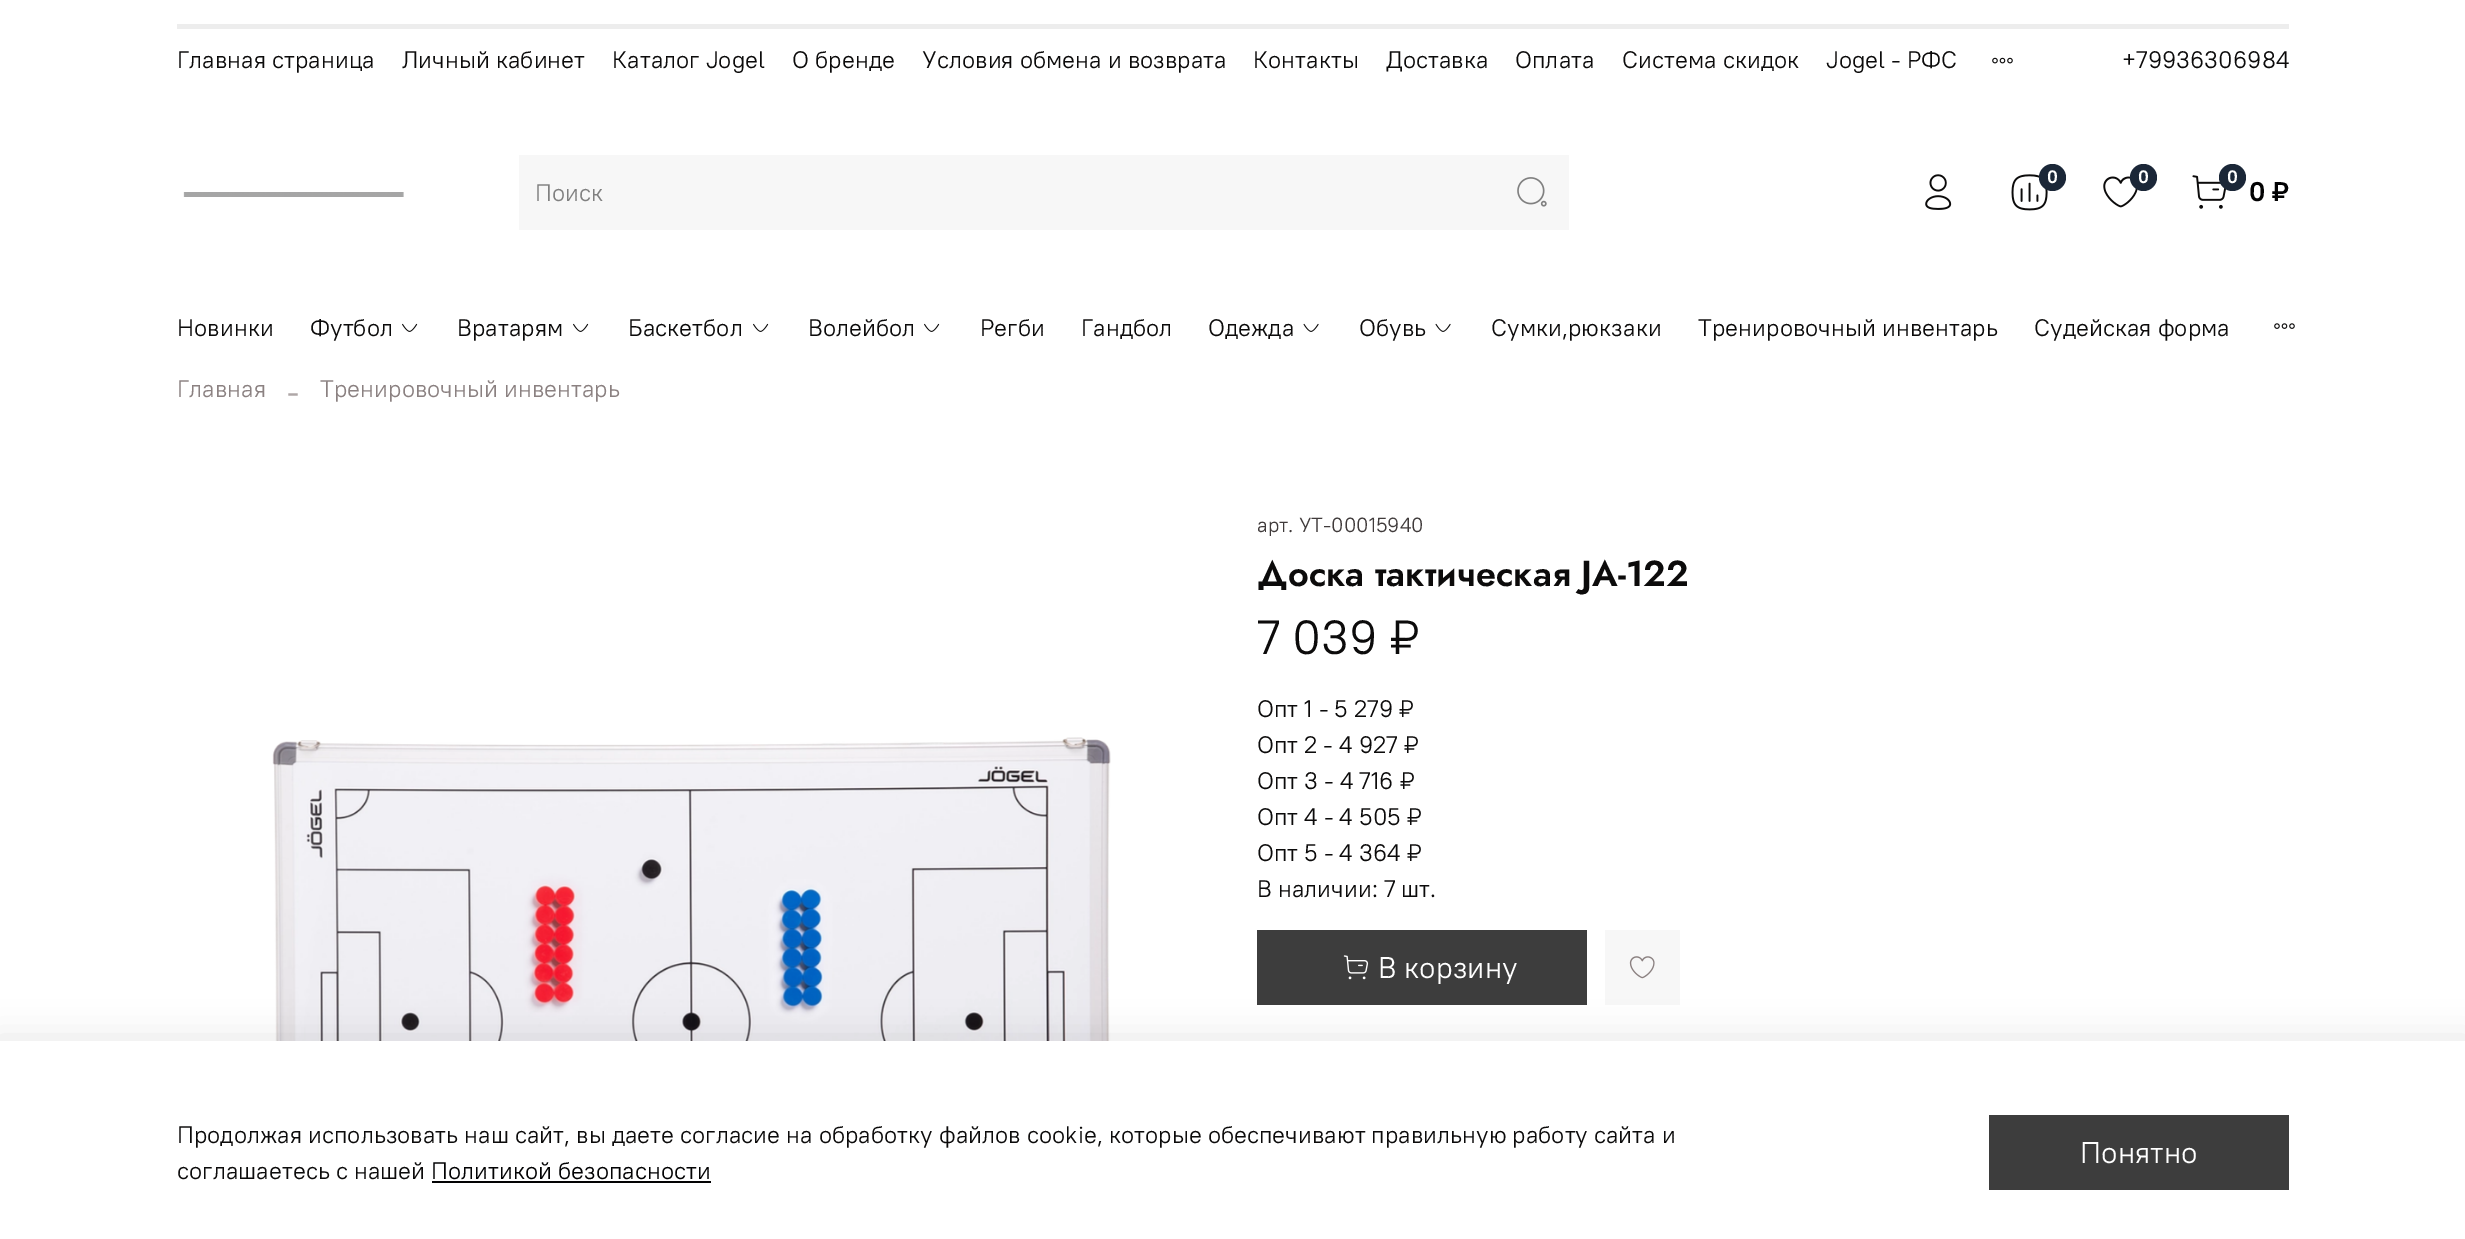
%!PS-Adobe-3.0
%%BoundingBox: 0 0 2465 1239
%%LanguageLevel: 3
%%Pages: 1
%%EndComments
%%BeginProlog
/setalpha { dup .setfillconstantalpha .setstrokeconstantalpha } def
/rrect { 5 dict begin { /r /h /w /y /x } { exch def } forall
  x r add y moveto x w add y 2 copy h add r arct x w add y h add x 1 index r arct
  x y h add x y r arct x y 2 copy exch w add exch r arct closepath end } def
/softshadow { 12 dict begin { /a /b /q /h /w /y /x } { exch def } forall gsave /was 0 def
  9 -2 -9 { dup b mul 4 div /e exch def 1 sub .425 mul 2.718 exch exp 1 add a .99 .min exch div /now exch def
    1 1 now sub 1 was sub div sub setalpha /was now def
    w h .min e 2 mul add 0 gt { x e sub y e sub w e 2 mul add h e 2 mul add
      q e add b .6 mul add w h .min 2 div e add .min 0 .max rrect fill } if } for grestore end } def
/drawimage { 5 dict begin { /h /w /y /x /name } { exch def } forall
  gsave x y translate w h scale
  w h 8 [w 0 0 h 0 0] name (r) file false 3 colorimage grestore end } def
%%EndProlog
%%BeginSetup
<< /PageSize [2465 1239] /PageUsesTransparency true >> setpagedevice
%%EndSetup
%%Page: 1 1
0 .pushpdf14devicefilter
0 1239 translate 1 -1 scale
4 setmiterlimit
1 setgray
0 0 2465 1239 rectfill
0.929 setgray
177 24 2112 5 rectfill
(images/1.raw) 1992 57 21 7 drawimage
(images/2.raw) 183 192 221 5 drawimage
0.969 setgray
519 155 1050 75 rectfill
(images/3.raw) 1517 177 30 30 drawimage
(images/4.raw) 1925 174 27 36 drawimage
(images/5.raw) 2011 174 37 37 drawimage
0.106 0.153 0.22 setrgbcolor
newpath 2052.5 177.5 13.5 0 360 arc closepath fill
(images/6.raw) 2103 176 35 32 drawimage
newpath 2143.5 177.5 13.5 0 360 arc closepath fill
(images/7.raw) 2192 175 34 34 drawimage
newpath 2232.5 177.5 13.5 0 360 arc closepath fill
(images/8.raw) 402 323 16 9 drawimage
(images/8.raw) 573 323 16 9 drawimage
(images/8.raw) 753 323 16 9 drawimage
(images/8.raw) 924 323 16 9 drawimage
(images/9.raw) 1303 323 16 9 drawimage
(images/9.raw) 1435 323 16 9 drawimage
(images/10.raw) 2274 323 21 6 drawimage
(images/11.raw) 272 737 839 304 drawimage
0.239 setgray
1257 930 330 75 rectfill
(images/12.raw) 1343 955 26 25 drawimage
0.969 setgray
1605 930 75 75 rectfill
(images/13.raw) 1629 956 26 23 drawimage
0 setgray
-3 1037 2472 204 0 17 0.09 softshadow
1 setgray
0 1041 2465 198 rectfill
0.008 0.008 0.012 setrgbcolor
432 1181 279 2 rectfill
0.239 setgray
1989 1115 300 75 rectfill
/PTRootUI-Regular [24 0 0 -24 0 0] selectfont
0.047 0.043 0.043 setrgbcolor
177 68 moveto (Главная страница) show
402 68 moveto (Личный кабинет) show
612 68 moveto (Каталог Jogel) show
792 68 moveto (О бренде) show
922 68 moveto (Условия обмена и возврата) show
1253 68 moveto (Контакты) show
1386 68 moveto (Доставка) show
1515 68 moveto (Оплата) show
1622 68 moveto (Система скидок) show
1826 68 moveto (Jogel - РФС) show
2122 68 moveto (+79936306984) show
0.502 setgray
535 201 moveto (Поиск) show
/PTRootUI-Bold [18 0 0 -18 0 0] selectfont
1 setgray
2047 183 moveto (0) show
2138 183 moveto (0) show
2227 183 moveto (0) show
/PTRootUI-Bold [27 0 0 -27 0 0] selectfont
0.008 0.008 0.012 setrgbcolor
2249 201 moveto (0 ₽) show
/PTRootUI-Regular [24 0 0 -24 0 0] selectfont
0.047 0.043 0.043 setrgbcolor
177 336 moveto (Новинки) show
310 336 moveto (Футбол) show
457 336 moveto (Вратарям) show
628 336 moveto (Баскетбол) show
808 336 moveto (Волейбол) show
980 336 moveto (Регби) show
1081 336 moveto (Гандбол) show
1208 336 moveto (Одежда) show
1359 336 moveto (Обувь) show
1491 336 moveto (Сумки,рюкзаки) show
1698 336 moveto (Тренировочный инвентарь) show
2034 336 moveto (Судейская форма) show
0.545 0.506 0.506 setrgbcolor
177 397 moveto (Главная) show
/LiberationSerif-Regular [36 0 0 -36 0 0] selectfont
0.682 0.655 0.655 setrgbcolor
287 403 moveto (-) show
/PTRootUI-Regular [24 0 0 -24 0 0] selectfont
0.545 0.506 0.506 setrgbcolor
320 397 moveto (Тренировочный инвентарь) show
/PTRootUI-Regular [20.5 0 0 -20.5 0 0] selectfont
0.251 0.231 0.231 setrgbcolor
1257 532 moveto (арт. УТ-00015940) show
/Jost-SemiBold [36 0 0 -36 0 0] selectfont
0.047 0.043 0.043 setrgbcolor
1257 586 moveto (Доска тактическая JA-122) show
/PTRootUI-Regular [48 0 0 -48 0 0] selectfont
1257 654 moveto (7 039 ₽) show
/PTRootUI-Regular [24 0 0 -24 0 0] selectfont
1257 717 moveto (Опт 1 - 5 279 ₽) show
1257 753 moveto (Опт 2 - 4 927 ₽) show
1257 789 moveto (Опт 3 - 4 716 ₽) show
1257 825 moveto (Опт 4 - 4 505 ₽) show
1257 861 moveto (Опт 5 - 4 364 ₽) show
1257 897 moveto (В наличии: 7 шт.) show
/PTRootUI-Regular [30 0 0 -30 0 0] selectfont
1 setgray
1378 978 moveto (В корзину) show
/PTRootUI-Regular [24 0 0 -24 0 0] selectfont
0.047 0.043 0.043 setrgbcolor
177 1143 moveto (Продолжая использовать наш сайт, вы даете согласие на обработку файлов cookie, которые обеспечивают правильную работу сайта и) show
177 1179 moveto (соглашаетесь с нашей) show
0.008 0.008 0.012 setrgbcolor
431 1179 moveto (Политикой безопасности) show
/PTRootUI-Regular [30 0 0 -30 0 0] selectfont
1 setgray
2080 1163 moveto (Понятно) show
.poppdf14devicefilter showpage
%%EOF
